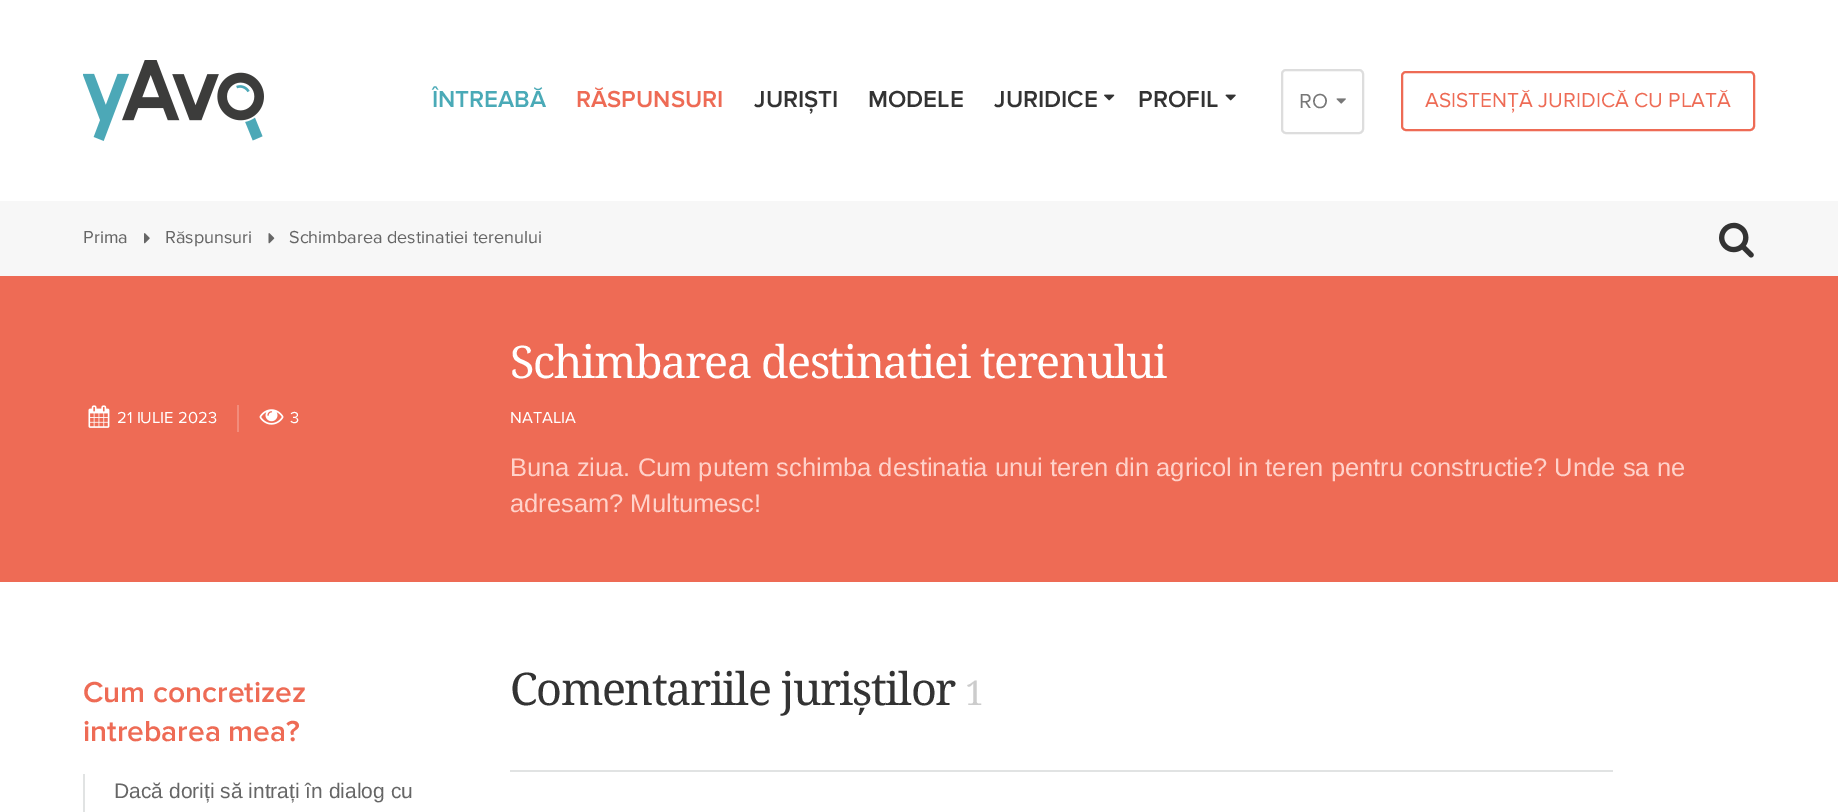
%!PS-Adobe-3.0
%%BoundingBox: 0 0 1838 812
%%LanguageLevel: 3
%%Pages: 1
%%EndComments
%%BeginProlog
/rrect { 5 dict begin { /r /h /w /y /x } { exch def } forall
  x r add y moveto x w add y 2 copy h add r arct x w add y h add x 1 index r arct
  x y h add x y r arct x y 2 copy exch w add exch r arct closepath end } def
/drawimage { 5 dict begin { /h /w /y /x /name } { exch def } forall
  gsave x y translate w h scale
  w h 8 [w 0 0 h 0 0] name (r) file false 3 colorimage grestore end } def
%%EndProlog
%%BeginSetup
<< /PageSize [1838 812] >> setpagedevice
%%EndSetup
%%Page: 1 1
0 812 translate 1 -1 scale
4 setmiterlimit
1 setgray
0 0 1838 812 rectfill
(images/1.raw) 83 60 181 81 drawimage
(images/2.raw) 1104 94 11 7 drawimage
(images/3.raw) 1225 94 11 7 drawimage
0.867 setgray
2 setlinewidth
1282 70 81 63 4 rrect stroke
(images/4.raw) 1336 98 10 6 drawimage
0.933 0.42 0.333 setrgbcolor
1402 72 352 58 4 rrect stroke
0.969 setgray
0 201 1838 75 rectfill
(images/5.raw) 144 233 6 11 drawimage
(images/6.raw) 268 233 7 11 drawimage
(images/7.raw) 1719 222 35 36 drawimage
0.933 0.42 0.333 setrgbcolor
0 276 1838 306 rectfill
(images/8.raw) 88 405 22 23 drawimage
0.949 0.549 0.482 setrgbcolor
237 405 2 27 rectfill
(images/9.raw) 259 409 25 16 drawimage
0.882 0.89 0.89 setrgbcolor
83 774 2 38 rectfill
510 770 1103 2 rectfill
/ProximaNova-SemiBold [24 0 0 -24 0 0] selectfont
0.29 0.667 0.718 setrgbcolor
432 107 moveto (ÎNTREABĂ) show
0.933 0.42 0.333 setrgbcolor
576 107 moveto (RĂSPUNSURI) show
0.2 setgray
754 107 moveto (JURIȘTI) show
868 107 moveto (MODELE) show
994 107 moveto (JURIDICE) show
1138 107 moveto (PROFIL) show
/ProximaNova-Regular [21 0 0 -21 0 0] selectfont
0.467 setgray
1299 108 moveto (RO) show
0.933 0.42 0.333 setrgbcolor
1425 107 moveto (ASISTENȚĂ JURIDICĂ CU PLATĂ) show
/ProximaNova-Regular [18 0 0 -18 0 0] selectfont
0.4 setgray
83 243 moveto (Prima) show
165 243 moveto (Răspunsuri) show
289 243 moveto (Schimbarea destinatiei terenului) show
/NotoSerif-Regular [45 0 0 -45 0 0] selectfont
1 setgray
510 378 moveto -1.5 0 (Schimbarea destinatiei terenului) ashow
/ProximaNova-Regular [16.5 0 0 -16.5 0 0] selectfont
117 423 moveto (21 IULIE 2023) show
290 423 moveto (3) show
510 423 moveto (NATALIA) show
/LiberationSans-Regular [25.5 0 0 -25.5 0 0] selectfont
1 0.824 0.792 setrgbcolor
510 476 moveto (Buna ziua. Cum putem schimba destinatia unui teren din agricol in teren pentru constructie? Unde sa ne) show
510 512 moveto (adresam? Multumesc!) show
/ProximaNova-SemiBold [30 0 0 -30 0 0] selectfont
0.933 0.42 0.333 setrgbcolor
83 702 moveto (Cum concretizez) show
83 741 moveto (intrebarea mea?) show
/LiberationSans-Regular [21 0 0 -21 0 0] selectfont
0.4 setgray
114 798 moveto (Dacă doriți să intrați în dialog cu) show
/NotoSerif-Regular [45 0 0 -45 0 0] selectfont
0.2 setgray
510 705 moveto -1.5 0 (Comentariile juriștilor) ashow
/NotoSerif-Regular [34 0 0 -34 0 0] selectfont
0.8 setgray
965 705 moveto -1.5 0 (1) ashow
showpage
%%EOF
